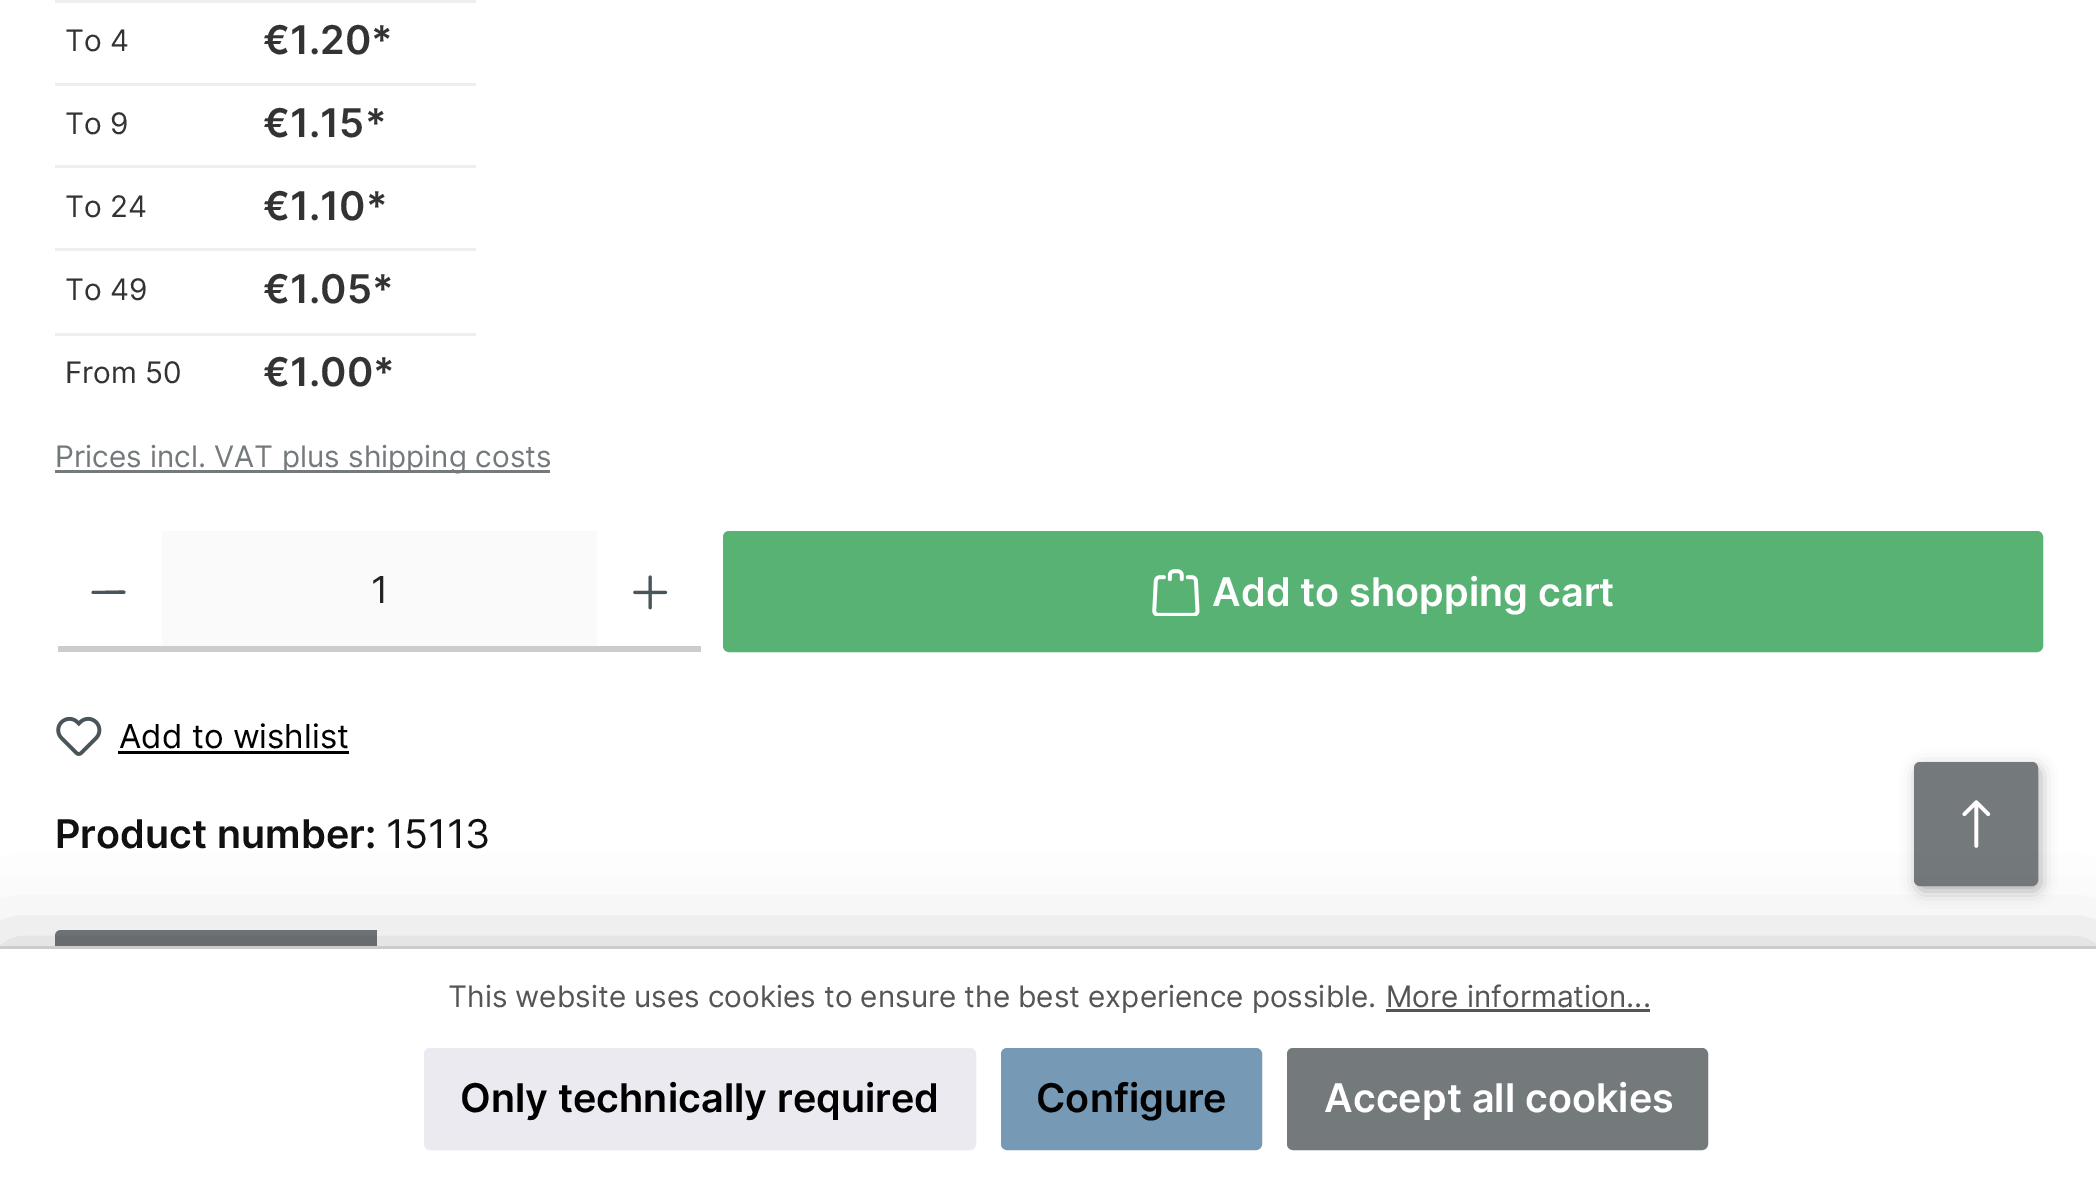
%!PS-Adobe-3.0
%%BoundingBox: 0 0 2096 1184
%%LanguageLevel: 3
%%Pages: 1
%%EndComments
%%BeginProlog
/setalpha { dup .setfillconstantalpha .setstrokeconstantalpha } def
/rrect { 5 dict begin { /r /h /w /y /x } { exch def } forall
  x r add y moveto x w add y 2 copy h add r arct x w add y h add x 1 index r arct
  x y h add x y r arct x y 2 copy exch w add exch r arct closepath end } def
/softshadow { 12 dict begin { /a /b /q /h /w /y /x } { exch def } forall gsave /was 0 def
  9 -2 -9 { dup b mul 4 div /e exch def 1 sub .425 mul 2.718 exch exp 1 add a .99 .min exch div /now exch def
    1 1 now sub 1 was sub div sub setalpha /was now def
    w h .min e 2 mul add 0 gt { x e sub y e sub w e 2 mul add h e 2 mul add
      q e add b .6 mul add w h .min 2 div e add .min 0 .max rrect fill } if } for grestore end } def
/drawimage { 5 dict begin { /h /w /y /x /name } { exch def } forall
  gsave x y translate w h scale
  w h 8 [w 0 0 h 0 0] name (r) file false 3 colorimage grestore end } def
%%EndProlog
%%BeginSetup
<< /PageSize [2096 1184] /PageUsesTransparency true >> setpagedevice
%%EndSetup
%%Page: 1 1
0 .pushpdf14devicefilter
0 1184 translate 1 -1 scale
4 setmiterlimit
1 setgray
0 0 2096 1184 rectfill
0.933 setgray
55 0 421 3 rectfill
55 83 421 3 rectfill
55 165 421 3 rectfill
55 248 421 3 rectfill
55 333 421 3 rectfill
0.455 0.475 0.486 setrgbcolor
55 470 495 3 rectfill
0.8 setgray
160 646 440 6 rectfill
1 setgray
newpath 61 531 moveto 162 531 lineto 162 652 lineto 61 652 lineto 57.5 652 55 649.5 55 646 curveto 55 537 lineto 55 533.5 57.5 531 61 531 curveto closepath fill
0.8 setgray
58 646 104 6 rectfill
0.29 0.329 0.357 setrgbcolor
newpath 93 594 moveto 124 594 lineto 125 593.5 lineto 125.5 592 lineto 125 589.5 119 590.5 118.5 590.5 curveto 92.5 591 lineto 91.5 591.5 91 593 92 593.5 curveto closepath eofill
0.98 setgray
162 531 435 115 rectfill
1 setgray
newpath 597 531 moveto 698 531 lineto 701.5 531 704 533.5 704 537 curveto 704 646 lineto 704 649.5 701.5 652 698 652 curveto 597 652 lineto closepath fill
0.8 setgray
597 646 104 6 rectfill
(images/1.raw) 633 575 35 35 drawimage
0.345 0.698 0.455 setrgbcolor
724.5 532.5 1317 118 4.5 rrect gsave fill grestore
3 setlinewidth
stroke
(images/2.raw) 1152 569 48 47 drawimage
(images/3.raw) 56 716 46 40 drawimage
0 setgray
118 751 231 3 rectfill
0.455 0.475 0.486 setrgbcolor
newpath 61 930 moveto 377 930 lineto 377 1056 lineto 55 1056 lineto 55 936 lineto 55 932.5 57.5 930 61 930 curveto closepath fill
0 setgray
1917 767 124 124 6 8 0.3 softshadow
0.455 0.475 0.486 setrgbcolor
1915.5 763.5 121 121 4.5 rrect gsave fill grestore
stroke
(images/4.raw) 1962 800 29 48 drawimage
0 setgray
0 946 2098 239 0 41 0.2 softshadow
1 setgray
0 949 2096 235 rectfill
0.8 setgray
0 946 2096 3 rectfill
0.333 setgray
1386 1009 264 3 rectfill
0.918 0.918 0.941 setrgbcolor
425.5 1049.5 549 99 4.5 rrect gsave fill grestore
stroke
0.463 0.6 0.71 setrgbcolor
1002.5 1049.5 258 99 4.5 rrect gsave fill grestore
stroke
0.455 0.475 0.486 setrgbcolor
1288.5 1049.5 418 99 4.5 rrect gsave fill grestore
stroke
/Inter-Regular [29.7 0 0 -29.7 0 0] selectfont
0.2 setgray
65 51 moveto (To 4) show
/Inter-SemiBold [39.6 0 0 -39.6 0 0] selectfont
263 54 moveto (€1.20*) show
/Inter-Regular [29.7 0 0 -29.7 0 0] selectfont
65 134 moveto (To 9) show
/Inter-SemiBold [39.6 0 0 -39.6 0 0] selectfont
263 137 moveto (€1.15*) show
/Inter-Regular [29.7 0 0 -29.7 0 0] selectfont
65 217 moveto (To 24) show
/Inter-SemiBold [39.6 0 0 -39.6 0 0] selectfont
263 220 moveto (€1.10*) show
/Inter-Regular [29.7 0 0 -29.7 0 0] selectfont
65 300 moveto (To 49) show
/Inter-SemiBold [39.6 0 0 -39.6 0 0] selectfont
263 303 moveto (€1.05*) show
/Inter-Regular [29.7 0 0 -29.7 0 0] selectfont
65 383 moveto (From 50) show
/Inter-SemiBold [39.6 0 0 -39.6 0 0] selectfont
263 386 moveto (€1.00*) show
/Inter-Regular [29.7 0 0 -29.7 0 0] selectfont
0.455 0.475 0.486 setrgbcolor
55 467 moveto (Prices incl. VAT plus shipping costs) show
/Inter-Regular [37 0 0 -37 0 0] selectfont
0.133 setgray
371 603 moveto (1) show
/Inter-SemiBold [39.6 0 0 -39.6 0 0] selectfont
1 setgray
1212 606 moveto (Add to shopping cart) show
/Inter-Regular [33 0 0 -33 0 0] selectfont
0 setgray
119 748 moveto (Add to wishlist) show
/Inter-SemiBold [39.6 0 0 -39.6 0 0] selectfont
0.067 setgray
55 848 moveto (Product number:) show
/Inter-Regular [39.6 0 0 -39.6 0 0] selectfont
386 848 moveto (15113) show
/Inter-Regular [29.7 0 0 -29.7 0 0] selectfont
0.333 setgray
448 1007 moveto -0.25 0 32 (This website uses cookies to ensure the best experience possible.) widthshow
1386 1007 moveto (More information...) show
/Inter-SemiBold [39.6 0 0 -39.6 0 0] selectfont
0 setgray
460 1112 moveto (Only technically required) show
1036 1112 moveto (Configure) show
1 setgray
1324 1112 moveto (Accept all cookies) show
.poppdf14devicefilter showpage
%%EOF
